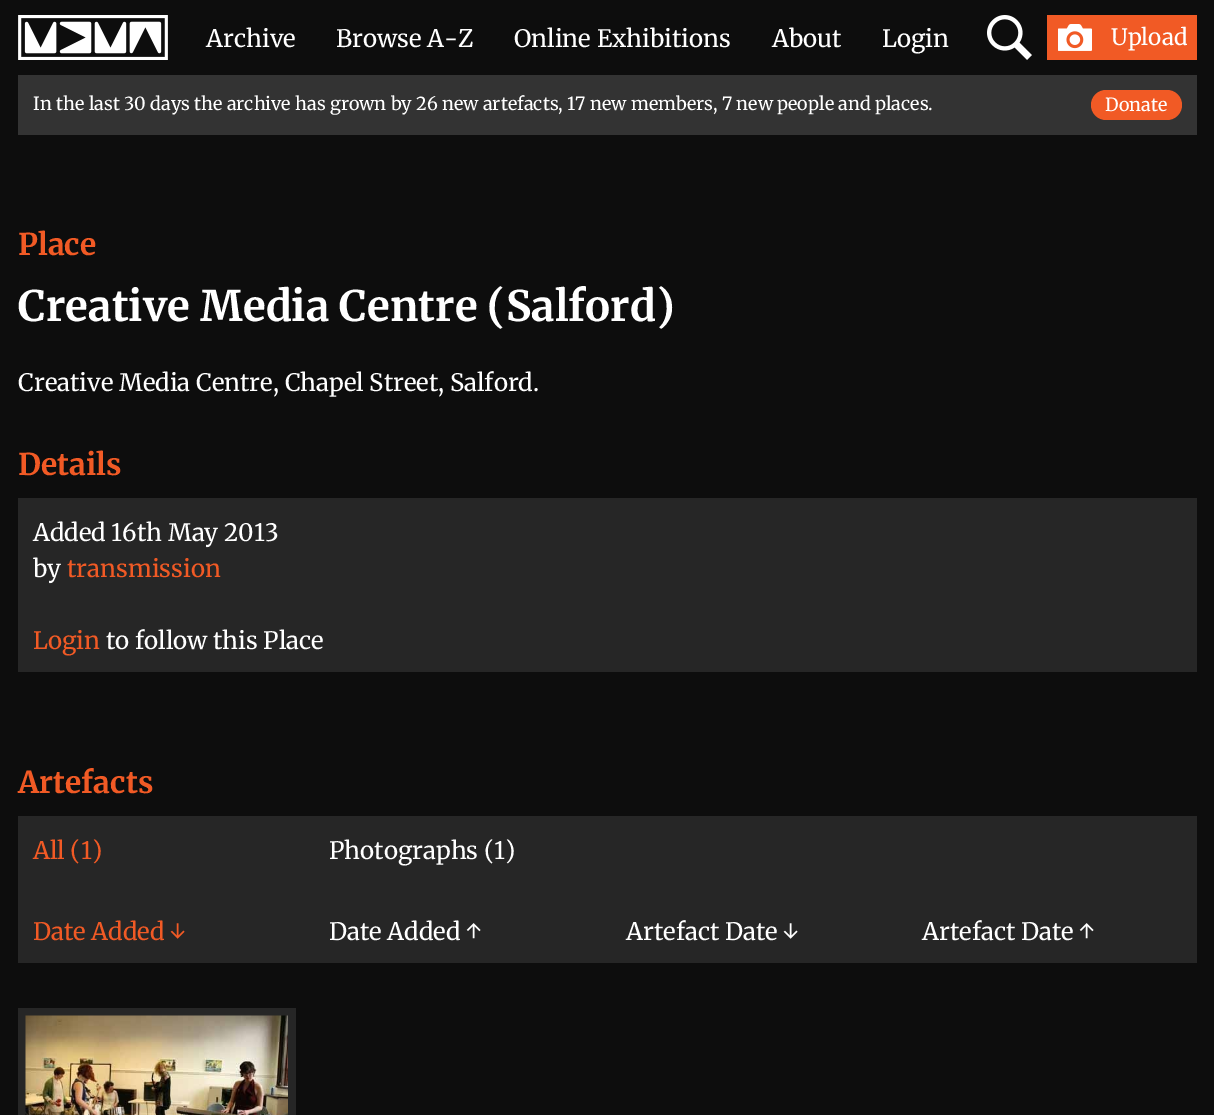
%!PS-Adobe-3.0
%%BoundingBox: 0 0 1214 1115
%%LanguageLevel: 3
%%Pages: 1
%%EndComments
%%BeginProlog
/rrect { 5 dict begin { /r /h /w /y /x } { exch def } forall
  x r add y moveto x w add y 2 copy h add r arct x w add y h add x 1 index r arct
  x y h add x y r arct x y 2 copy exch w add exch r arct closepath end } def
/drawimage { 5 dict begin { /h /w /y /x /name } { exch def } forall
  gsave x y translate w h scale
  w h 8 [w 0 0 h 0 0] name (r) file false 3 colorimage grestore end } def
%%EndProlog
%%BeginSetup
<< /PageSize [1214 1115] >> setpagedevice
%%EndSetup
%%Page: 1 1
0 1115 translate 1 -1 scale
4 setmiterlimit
0.051 setgray
0 0 1214 1115 rectfill
(images/1.raw) 18 15 150 45 drawimage
(images/2.raw) 987 15 45 45 drawimage
0.945 0.353 0.145 setrgbcolor
1047 15 150 45 rectfill
(images/3.raw) 1058 24 34 27 drawimage
0.2 setgray
18 75 1179 60 rectfill
0.945 0.353 0.145 setrgbcolor
1091 90 91 30 15 rrect fill
0.149 setgray
18 498 1179 174 rectfill
18 816 1179 147 rectfill
18 1008 278 107 rectfill
(images/4.raw) 25 1015 263 100 drawimage
/Merriweather-Regular [24 0 0 -24 0 0] selectfont
1 setgray
206 47 moveto (Archive) show
336 47 moveto (Browse A-Z) show
514 47 moveto (Online Exhibitions) show
772 47 moveto (About) show
882 47 moveto (Login) show
/Merriweather-Regular [22.5 0 0 -22.5 0 0] selectfont
1111 45 moveto (Upload) show
/Merriweather-Regular [18 0 0 -18 0 0] selectfont
33 110 moveto (In the last 30 days the archive has grown by 26 new artefacts, 17 new members, 7 new people and places.) show
1105 111 moveto (Donate) show
/Merriweather-Bold [30 0 0 -30 0 0] selectfont
0.945 0.353 0.145 setrgbcolor
18 255 moveto (Place) show
/Merriweather-Bold [42 0 0 -42 0 0] selectfont
1 setgray
18 321 moveto (Creative Media Centre \(Salford\)) show
/Merriweather-Regular [24 0 0 -24 0 0] selectfont
18 391 moveto (Creative Media Centre, Chapel Street, Salford.) show
/Merriweather-Bold [30 0 0 -30 0 0] selectfont
0.945 0.353 0.145 setrgbcolor
18 475 moveto (Details) show
/Merriweather-Regular [24 0 0 -24 0 0] selectfont
1 setgray
33 541 moveto (Added 16th May 2013) show
33 577 moveto (by) show
0.945 0.353 0.145 setrgbcolor
67 577 moveto (transmission) show
33 649 moveto (Login) show
1 setgray
106 649 moveto (to follow this Place) show
/Merriweather-Bold [30 0 0 -30 0 0] selectfont
0.945 0.353 0.145 setrgbcolor
18 793 moveto (Artefacts) show
/Merriweather-Regular [24 0 0 -24 0 0] selectfont
33 859 moveto (All \(1\)) show
1 setgray
329 859 moveto (Photographs \(1\)) show
0.945 0.353 0.145 setrgbcolor
33 940 moveto (Date Added ↓) show
1 setgray
329 940 moveto (Date Added ↑) show
626 940 moveto (Artefact Date ↓) show
922 940 moveto (Artefact Date ↑) show
showpage
%%EOF
